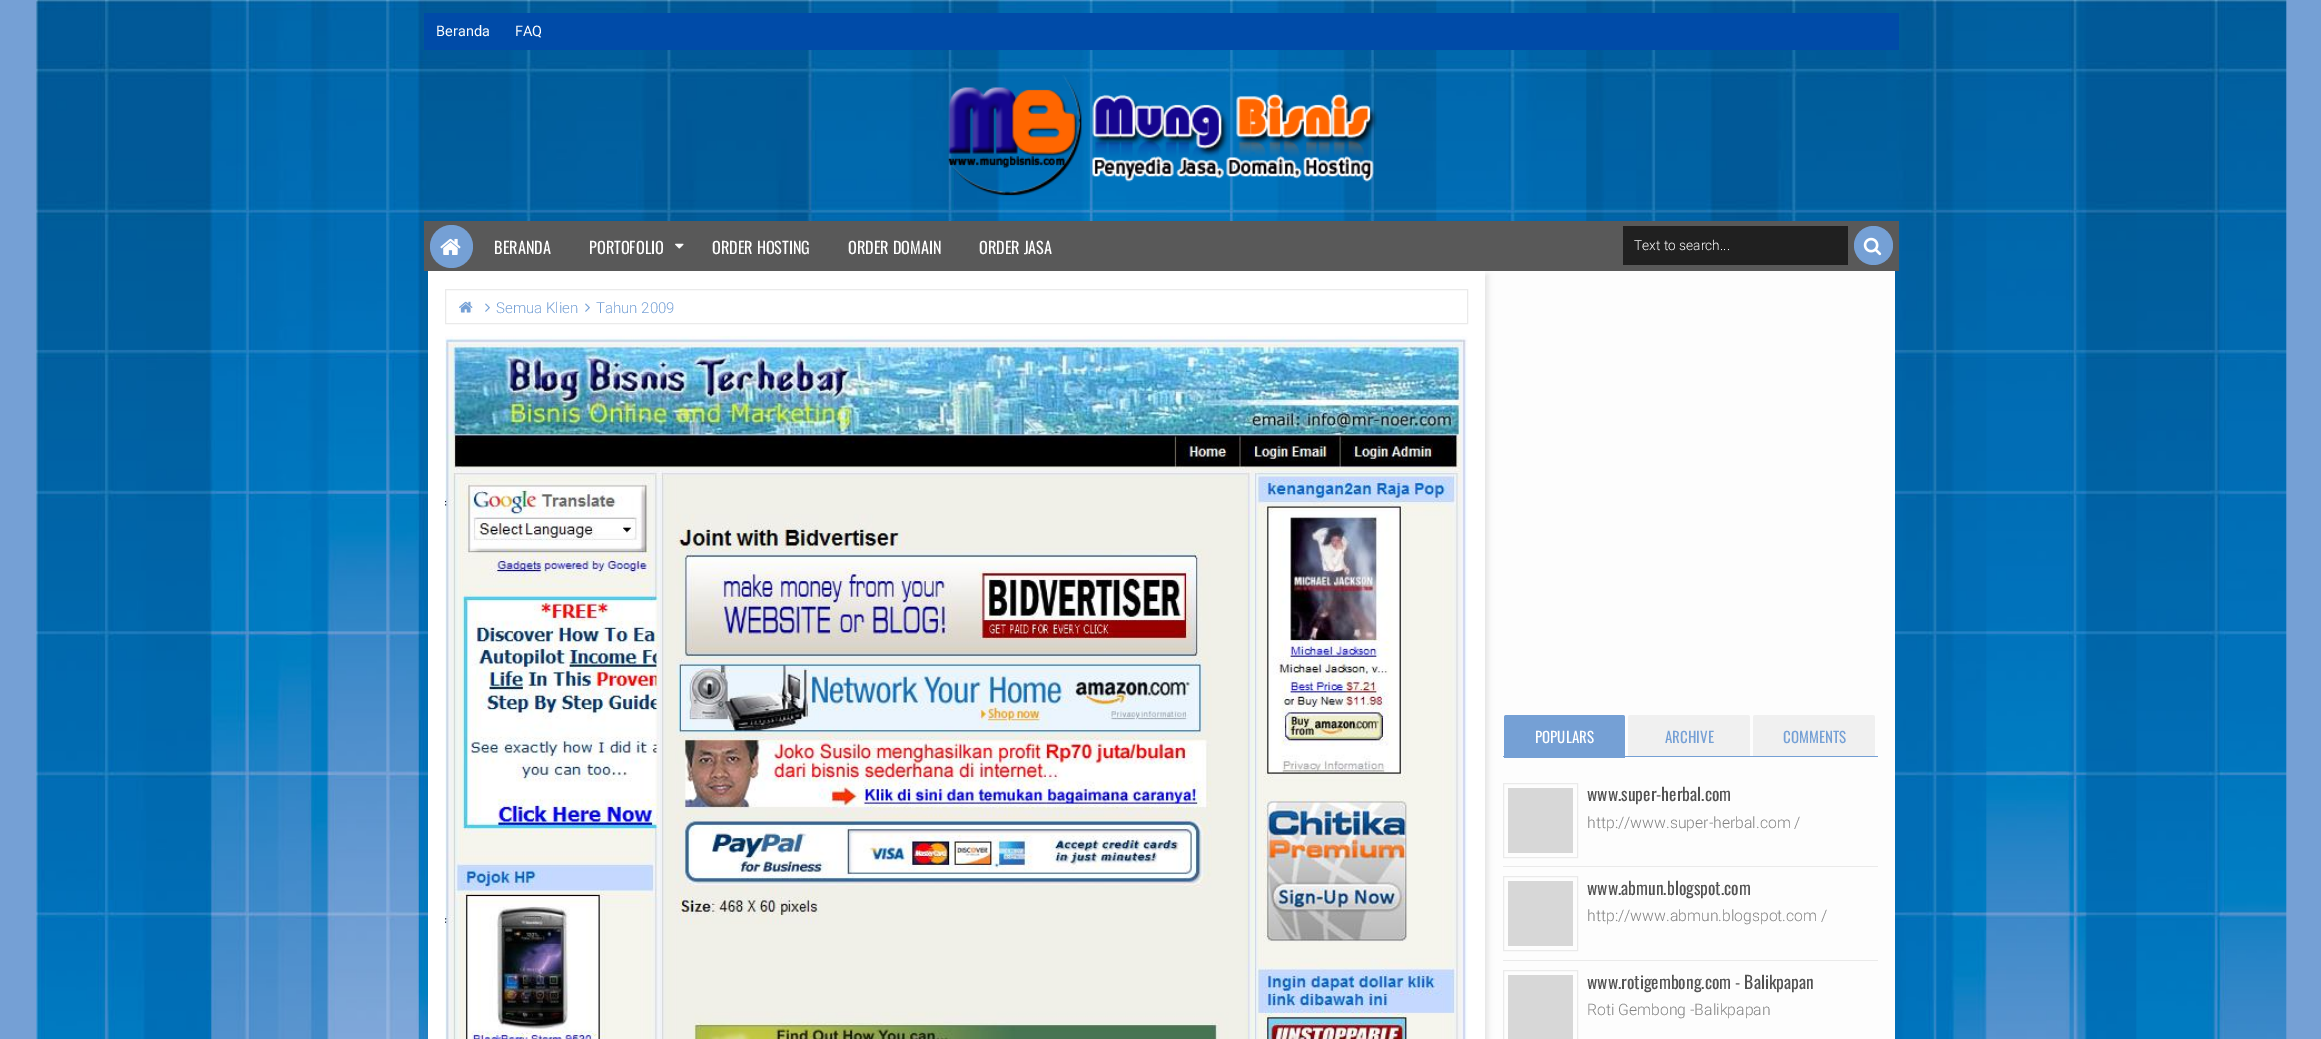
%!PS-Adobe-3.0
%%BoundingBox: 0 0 2321 1039
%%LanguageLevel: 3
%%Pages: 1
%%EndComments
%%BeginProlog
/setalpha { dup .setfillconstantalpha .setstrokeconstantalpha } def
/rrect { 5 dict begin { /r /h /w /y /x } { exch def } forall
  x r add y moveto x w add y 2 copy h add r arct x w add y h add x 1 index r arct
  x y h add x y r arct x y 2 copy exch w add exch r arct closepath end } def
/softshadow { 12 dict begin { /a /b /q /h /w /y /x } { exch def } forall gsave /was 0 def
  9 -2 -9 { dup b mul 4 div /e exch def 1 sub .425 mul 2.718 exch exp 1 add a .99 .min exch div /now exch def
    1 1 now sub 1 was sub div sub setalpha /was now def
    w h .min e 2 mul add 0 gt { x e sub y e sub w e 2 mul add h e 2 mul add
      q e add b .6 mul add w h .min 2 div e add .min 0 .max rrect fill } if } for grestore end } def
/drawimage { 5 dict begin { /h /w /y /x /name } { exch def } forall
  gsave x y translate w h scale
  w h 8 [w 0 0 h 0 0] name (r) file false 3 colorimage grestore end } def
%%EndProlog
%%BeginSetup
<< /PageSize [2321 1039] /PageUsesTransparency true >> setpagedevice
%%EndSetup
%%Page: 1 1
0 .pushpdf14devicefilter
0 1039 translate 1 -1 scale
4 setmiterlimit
0.459 0.627 0.835 setrgbcolor
0 0 2321 1039 rectfill
(images/1.raw) 36 0 2251 1039 drawimage
0 0.294 0.659 setrgbcolor
424 13 1475 37 rectfill
(images/2.raw) 948 75 429 121 drawimage
0.992 setgray
1485 271 410 768 rectfill
0 setgray
430 275 1058 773 0 3 0.1 softshadow
0.349 setgray
424 221 1475 50 rectfill
0.459 0.627 0.835 setrgbcolor
newpath 451.5 246.5 21.5 0 360 arc closepath fill
(images/3.raw) 440 238 21 17 drawimage
(images/4.raw) 675 243 9 6 drawimage
0.125 setgray
1623 226 225 39 rectfill
0.459 0.627 0.835 setrgbcolor
newpath 1873.5 245.5 19.5 0 360 arc closepath fill
(images/5.raw) 1863 237 19 19 drawimage
1 setgray
428 271 1057 768 rectfill
0.918 setgray
445.5 289.5 1022 34 rectstroke
(images/6.raw) 459 301 14 12 drawimage
(images/7.raw) 485 303 5 9 drawimage
(images/7.raw) 585 303 5 9 drawimage
(images/8.raw) 445 336 1023 703 drawimage
0.459 0.627 0.835 setrgbcolor
1503 756 375 1 rectfill
newpath 1506.5 715 moveto 1622.5 715 lineto 1624 715 1625 716 1625 717.5 curveto 1625 758 lineto 1504 758 lineto 1504 717.5 lineto 1504 716 1505 715 1506.5 715 curveto closepath fill
0.941 setgray
newpath 1630.5 715 moveto 1747.5 715 lineto 1749 715 1750 716 1750 717.5 curveto 1750 756 lineto 1628 756 lineto 1628 717.5 lineto 1628 716 1629 715 1630.5 715 curveto closepath fill
newpath 1755.5 715 moveto 1872.5 715 lineto 1874 715 1875 716 1875 717.5 curveto 1875 756 lineto 1753 756 lineto 1753 717.5 lineto 1753 716 1754 715 1755.5 715 curveto closepath fill
0.918 setgray
1503 866 375 1 rectfill
1503.5 783.5 74 74 rectstroke
0.843 setgray
1508 788 65 65 rectfill
0.918 setgray
1503 960 375 1 rectfill
1503.5 876.5 74 74 rectstroke
0.843 setgray
1508 881 65 65 rectfill
0.918 setgray
1503.5 970.5 74 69 rectstroke
0.843 setgray
1508 975 65 64 rectfill
/Roboto-Regular [14.5 0 0 -14.5 0 0] selectfont
1 setgray
436 36 moveto (Beranda) show
515 36 moveto (FAQ) show
/Oswald-Regular [16.25 0 0 -16.25 0 0] selectfont
494 254 moveto (BERANDA) show
589 254 moveto (PORTOFOLIO) show
712 254 moveto (ORDER HOSTING) show
848 254 moveto (ORDER DOMAIN) show
979 254 moveto (ORDER JASA) show
/Roboto-Light [13.75 0 0 -13.75 0 0] selectfont
1634 250 moveto (Text to search...) show
/Roboto-Light [15 0 0 -15 0 0] selectfont
0.459 0.627 0.835 setrgbcolor
496 313 moveto (Semua Klien) show
596 313 moveto (Tahun 2009) show
/Oswald-Regular [15 0 0 -15 0 0] selectfont
1 setgray
1535 743 moveto (POPULARS) show
0.459 0.627 0.835 setrgbcolor
1665 743 moveto (ARCHIVE) show
1783 743 moveto (COMMENTS) show
/Oswald-Regular [17.5 0 0 -17.5 0 0] selectfont
0.325 setgray
1587 801 moveto (www.super-herbal.com) show
/Roboto-Light [15.75 0 0 -15.75 0 0] selectfont
0.506 setgray
1587 828 moveto (http://www.super-herbal.com /) show
/Oswald-Regular [17.5 0 0 -17.5 0 0] selectfont
0.325 setgray
1587 895 moveto (www.abmun.blogspot.com) show
/Roboto-Light [15.75 0 0 -15.75 0 0] selectfont
0.506 setgray
1587 921 moveto (http://www.abmun.blogspot.com /) show
/Oswald-Regular [17.5 0 0 -17.5 0 0] selectfont
0.325 setgray
1587 989 moveto (www.rotigembong.com - Balikpapan) show
/Roboto-Light [15.75 0 0 -15.75 0 0] selectfont
0.506 setgray
1587 1015 moveto (Roti Gembong -Balikpapan) show
.poppdf14devicefilter showpage
%%EOF
